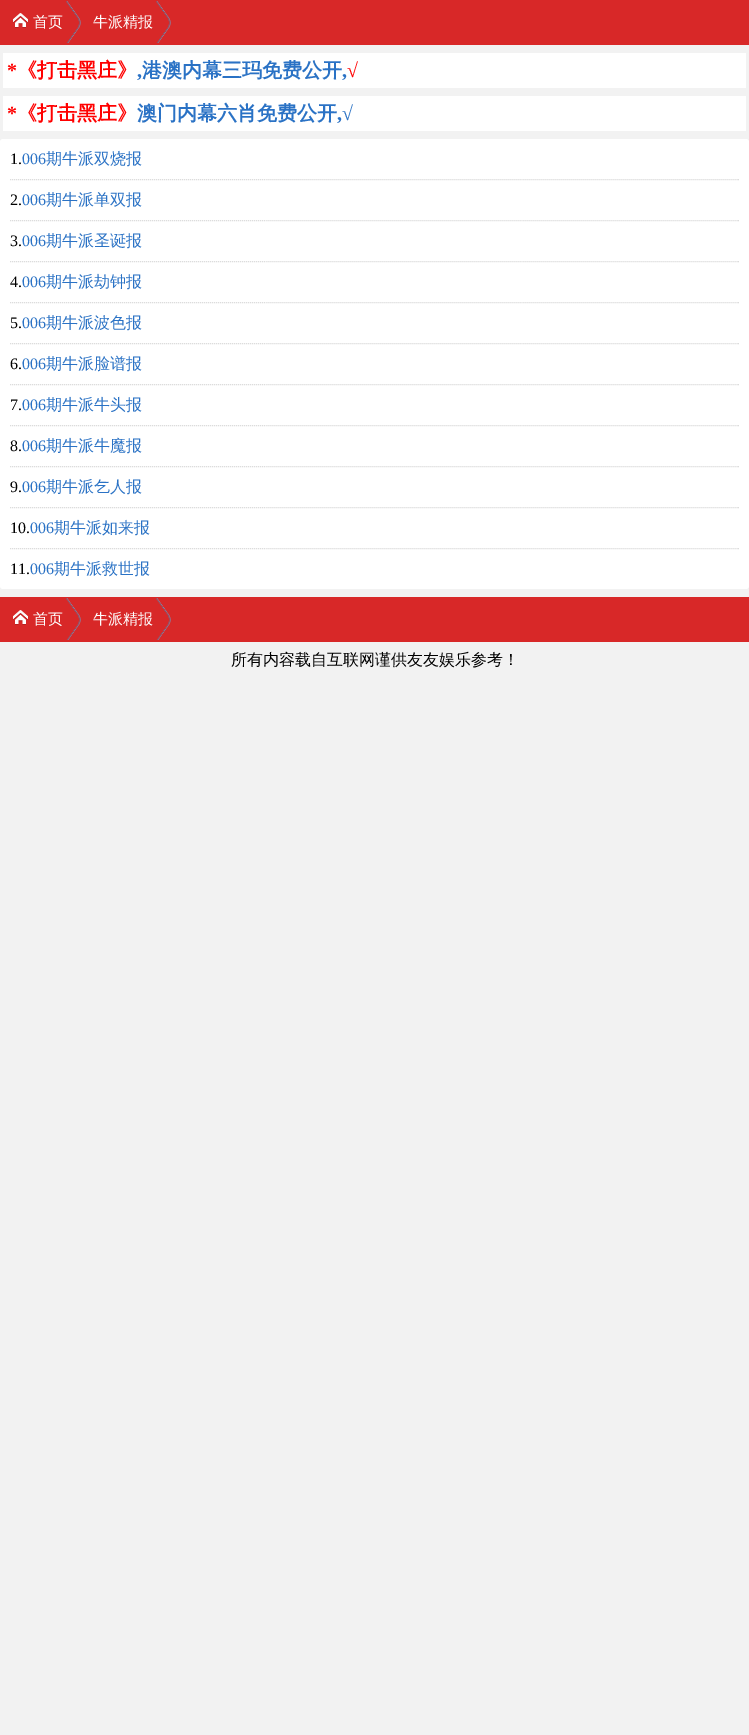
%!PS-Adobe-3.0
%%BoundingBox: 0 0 749 1735
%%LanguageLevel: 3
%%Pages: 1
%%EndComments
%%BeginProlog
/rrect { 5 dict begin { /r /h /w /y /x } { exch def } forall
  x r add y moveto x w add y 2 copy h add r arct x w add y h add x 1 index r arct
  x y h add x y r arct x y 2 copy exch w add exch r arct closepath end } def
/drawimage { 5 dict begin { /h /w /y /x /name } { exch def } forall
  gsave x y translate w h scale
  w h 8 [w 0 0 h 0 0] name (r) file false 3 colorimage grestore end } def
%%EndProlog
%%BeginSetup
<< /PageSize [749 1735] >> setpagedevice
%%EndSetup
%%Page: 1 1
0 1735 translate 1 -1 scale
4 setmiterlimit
0.949 setgray
0 0 749 1735 rectfill
0.847 0.157 0.157 setrgbcolor
0 0 749 45 rectfill
(images/1.raw) 66 1 15 42 drawimage
(images/2.raw) 13 13 15 15 drawimage
(images/3.raw) 156 1 15 42 drawimage
1 setgray
3 53 743 35 rectfill
3 96 743 35 rectfill
0 139 749 450 3 rrect fill
0.863 setgray
[1 1] 0 setdash
newpath 10 179.5 moveto 739 179.5 lineto stroke
newpath 10 220.5 moveto 739 220.5 lineto stroke
newpath 10 261.5 moveto 739 261.5 lineto stroke
newpath 10 302.5 moveto 739 302.5 lineto stroke
newpath 10 343.5 moveto 739 343.5 lineto stroke
newpath 10 384.5 moveto 739 384.5 lineto stroke
newpath 10 425.5 moveto 739 425.5 lineto stroke
newpath 10 466.5 moveto 739 466.5 lineto stroke
newpath 10 507.5 moveto 739 507.5 lineto stroke
newpath 10 548.5 moveto 739 548.5 lineto stroke
0.847 0.157 0.157 setrgbcolor
0 597 749 45 rectfill
(images/1.raw) 66 598 15 42 drawimage
(images/2.raw) 13 610 15 15 drawimage
(images/3.raw) 156 598 15 42 drawimage
/WenQuanYiZenHei-Medium [15 0 0 -15 0 0] selectfont
1 setgray
33 27 moveto (首页) show
93 27 moveto (牛派精报) show
/LiberationSerif-Bold [20 0 0 -20 0 0] selectfont
1 0 0 setrgbcolor
7 77 moveto (*) show
/WenQuanYiZenHei-Bold [20 0 0 -20 0 0] selectfont
17 77 moveto (《打击黑庄》) show
0.165 0.447 0.773 setrgbcolor
142 77 moveto (港澳内幕三玛免费公开) show
/LiberationSerif-Bold [20 0 0 -20 0 0] selectfont
1 0 0 setrgbcolor
347 77 moveto (√) show
0.165 0.447 0.773 setrgbcolor
137 77 moveto (,) show
342 77 moveto (,) show
1 0 0 setrgbcolor
7 120 moveto (*) show
/WenQuanYiZenHei-Bold [20 0 0 -20 0 0] selectfont
17 120 moveto (《打击黑庄》) show
0.165 0.447 0.773 setrgbcolor
137 120 moveto (澳门内幕六肖免费公开) show
/LiberationSerif-Bold [20 0 0 -20 0 0] selectfont
337 120 moveto (,√) show
/LiberationSerif-Regular [16 0 0 -16 0 0] selectfont
0 setgray
10 164 moveto (1.) show
0.165 0.447 0.773 setrgbcolor
22 164 moveto (006) show
/WenQuanYiZenHei-Medium [16 0 0 -16 0 0] selectfont
46 164 moveto (期牛派双烧报) show
/LiberationSerif-Regular [16 0 0 -16 0 0] selectfont
0 setgray
10 205 moveto (2.) show
0.165 0.447 0.773 setrgbcolor
22 205 moveto (006) show
/WenQuanYiZenHei-Medium [16 0 0 -16 0 0] selectfont
46 205 moveto (期牛派单双报) show
/LiberationSerif-Regular [16 0 0 -16 0 0] selectfont
0 setgray
10 246 moveto (3.) show
0.165 0.447 0.773 setrgbcolor
22 246 moveto (006) show
/WenQuanYiZenHei-Medium [16 0 0 -16 0 0] selectfont
46 246 moveto (期牛派圣诞报) show
/LiberationSerif-Regular [16 0 0 -16 0 0] selectfont
0 setgray
10 287 moveto (4.) show
0.165 0.447 0.773 setrgbcolor
22 287 moveto (006) show
/WenQuanYiZenHei-Medium [16 0 0 -16 0 0] selectfont
46 287 moveto (期牛派劫钟报) show
/LiberationSerif-Regular [16 0 0 -16 0 0] selectfont
0 setgray
10 328 moveto (5.) show
0.165 0.447 0.773 setrgbcolor
22 328 moveto (006) show
/WenQuanYiZenHei-Medium [16 0 0 -16 0 0] selectfont
46 328 moveto (期牛派波色报) show
/LiberationSerif-Regular [16 0 0 -16 0 0] selectfont
0 setgray
10 369 moveto (6.) show
0.165 0.447 0.773 setrgbcolor
22 369 moveto (006) show
/WenQuanYiZenHei-Medium [16 0 0 -16 0 0] selectfont
46 369 moveto (期牛派脸谱报) show
/LiberationSerif-Regular [16 0 0 -16 0 0] selectfont
0 setgray
10 410 moveto (7.) show
0.165 0.447 0.773 setrgbcolor
22 410 moveto (006) show
/WenQuanYiZenHei-Medium [16 0 0 -16 0 0] selectfont
46 410 moveto (期牛派牛头报) show
/LiberationSerif-Regular [16 0 0 -16 0 0] selectfont
0 setgray
10 451 moveto (8.) show
0.165 0.447 0.773 setrgbcolor
22 451 moveto (006) show
/WenQuanYiZenHei-Medium [16 0 0 -16 0 0] selectfont
46 451 moveto (期牛派牛魔报) show
/LiberationSerif-Regular [16 0 0 -16 0 0] selectfont
0 setgray
10 492 moveto (9.) show
0.165 0.447 0.773 setrgbcolor
22 492 moveto (006) show
/WenQuanYiZenHei-Medium [16 0 0 -16 0 0] selectfont
46 492 moveto (期牛派乞人报) show
/LiberationSerif-Regular [16 0 0 -16 0 0] selectfont
0 setgray
10 533 moveto (10.) show
0.165 0.447 0.773 setrgbcolor
30 533 moveto (006) show
/WenQuanYiZenHei-Medium [16 0 0 -16 0 0] selectfont
54 533 moveto (期牛派如来报) show
/LiberationSerif-Regular [16 0 0 -16 0 0] selectfont
0 setgray
10 574 moveto (11.) show
0.165 0.447 0.773 setrgbcolor
30 574 moveto (006) show
/WenQuanYiZenHei-Medium [16 0 0 -16 0 0] selectfont
54 574 moveto (期牛派救世报) show
/WenQuanYiZenHei-Medium [15 0 0 -15 0 0] selectfont
1 setgray
33 624 moveto (首页) show
93 624 moveto (牛派精报) show
/WenQuanYiZenHei-Medium [16 0 0 -16 0 0] selectfont
0 setgray
231 665 moveto (所有内容载自互联网谨供友友娱乐参考！) show
showpage
%%EOF
